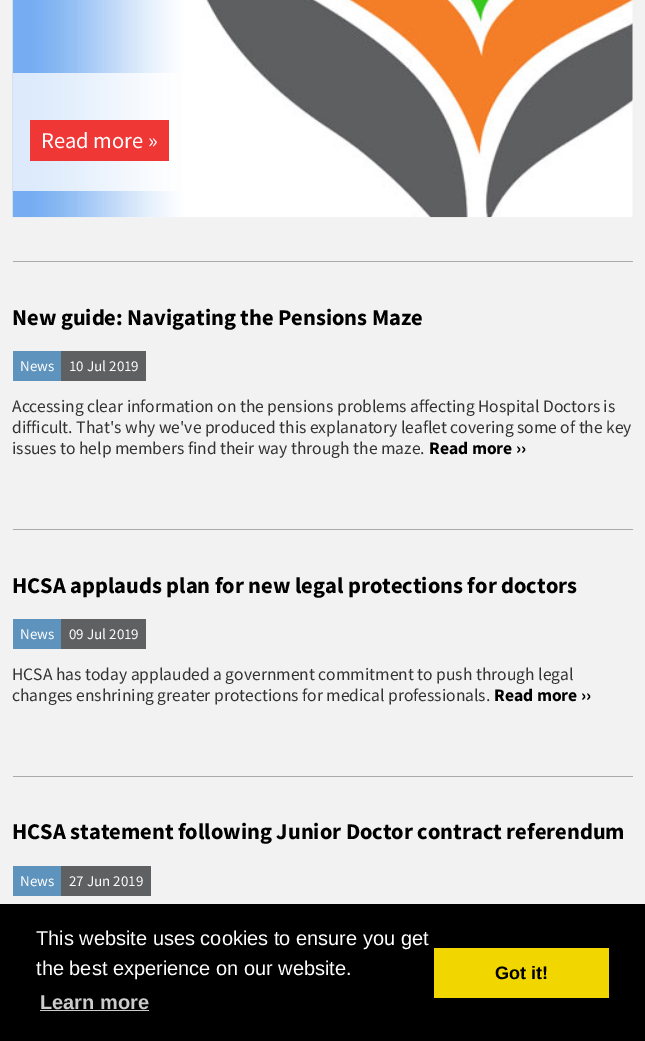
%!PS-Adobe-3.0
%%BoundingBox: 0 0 645 1041
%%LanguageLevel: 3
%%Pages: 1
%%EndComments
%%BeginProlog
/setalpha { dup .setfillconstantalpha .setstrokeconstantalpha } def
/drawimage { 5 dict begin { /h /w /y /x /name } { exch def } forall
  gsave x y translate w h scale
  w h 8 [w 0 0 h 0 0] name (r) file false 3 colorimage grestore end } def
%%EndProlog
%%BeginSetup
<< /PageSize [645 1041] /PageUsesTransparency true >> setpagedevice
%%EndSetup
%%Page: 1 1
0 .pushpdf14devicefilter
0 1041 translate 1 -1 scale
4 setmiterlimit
0.949 setgray
0 0 645 1041 rectfill
(images/1.raw) 12 0 621 218 drawimage
0.75 setalpha
1 setgray
13 73 165 118 rectfill
1 setalpha
0.937 0.22 0.212 setrgbcolor
30 120 139 41 rectfill
0.663 0.667 0.671 setrgbcolor
13 261 620 1 rectfill
0.369 0.576 0.745 setrgbcolor
13 351 48 30 rectfill
0.373 0.376 0.384 setrgbcolor
61 351 85 30 rectfill
0.663 0.667 0.671 setrgbcolor
13 529 620 1 rectfill
0.369 0.576 0.745 setrgbcolor
13 619 48 30 rectfill
0.373 0.376 0.384 setrgbcolor
61 619 85 30 rectfill
0.663 0.667 0.671 setrgbcolor
13 776 620 1 rectfill
0.369 0.576 0.745 setrgbcolor
13 866 48 30 rectfill
0.373 0.376 0.384 setrgbcolor
61 866 90 30 rectfill
0 setgray
0 904 645 137 rectfill
0.8 setgray
40 1010 109 1 rectfill
0.945 0.839 0 setrgbcolor
434 948 175 50 rectfill
/SourceSansPro-Regular [22.5 0 0 -22.5 0 0] selectfont
1 setgray
41 148 moveto (Read more ») show
/SourceSansPro-Bold [22.5 0 0 -22.5 0 0] selectfont
0 setgray
12 325 moveto (New guide: Navigating the Pensions Maze) show
/SourceSansPro-Regular [15 0 0 -15 0 0] selectfont
1 setgray
20 371 moveto (News) show
69 371 moveto (10 Jul 2019) show
/SourceSansPro-Regular [17.5 0 0 -17.5 0 0] selectfont
0.2 setgray
12 412 moveto (Accessing clear information on the pensions problems affecting Hospital Doctors is) show
12 433 moveto (difficult. That's why we've produced this explanatory leaflet covering some of the key) show
12 454 moveto (issues to help members find their way through the maze.) show
/SourceSansPro-Bold [17.5 0 0 -17.5 0 0] selectfont
0 setgray
429 454 moveto (Read more ››) show
/SourceSansPro-Bold [22.5 0 0 -22.5 0 0] selectfont
12 593 moveto (HCSA applauds plan for new legal protections for doctors) show
/SourceSansPro-Regular [15 0 0 -15 0 0] selectfont
1 setgray
20 639 moveto (News) show
69 639 moveto (09 Jul 2019) show
/SourceSansPro-Regular [17.5 0 0 -17.5 0 0] selectfont
0.2 setgray
12 680 moveto (HCSA has today applauded a government commitment to push through legal) show
12 701 moveto (changes enshrining greater protections for medical professionals.) show
/SourceSansPro-Bold [17.5 0 0 -17.5 0 0] selectfont
0 setgray
494 701 moveto (Read more ››) show
/SourceSansPro-Bold [22.5 0 0 -22.5 0 0] selectfont
12 839 moveto (HCSA statement following Junior Doctor contract referendum) show
/SourceSansPro-Regular [15 0 0 -15 0 0] selectfont
1 setgray
20 886 moveto (News) show
69 886 moveto (27 Jun 2019) show
/LiberationSans-Regular [20 0 0 -20 0 0] selectfont
36 945 moveto (This website uses cookies to ensure you get) show
36 975 moveto (the best experience on our website.) show
/LiberationSans-Bold [20 0 0 -20 0 0] selectfont
0.8 setgray
40 1009 moveto (Learn more) show
/LiberationSans-Bold [18 0 0 -18 0 0] selectfont
0 setgray
495 979 moveto (Got it!) show
.poppdf14devicefilter showpage
%%EOF
